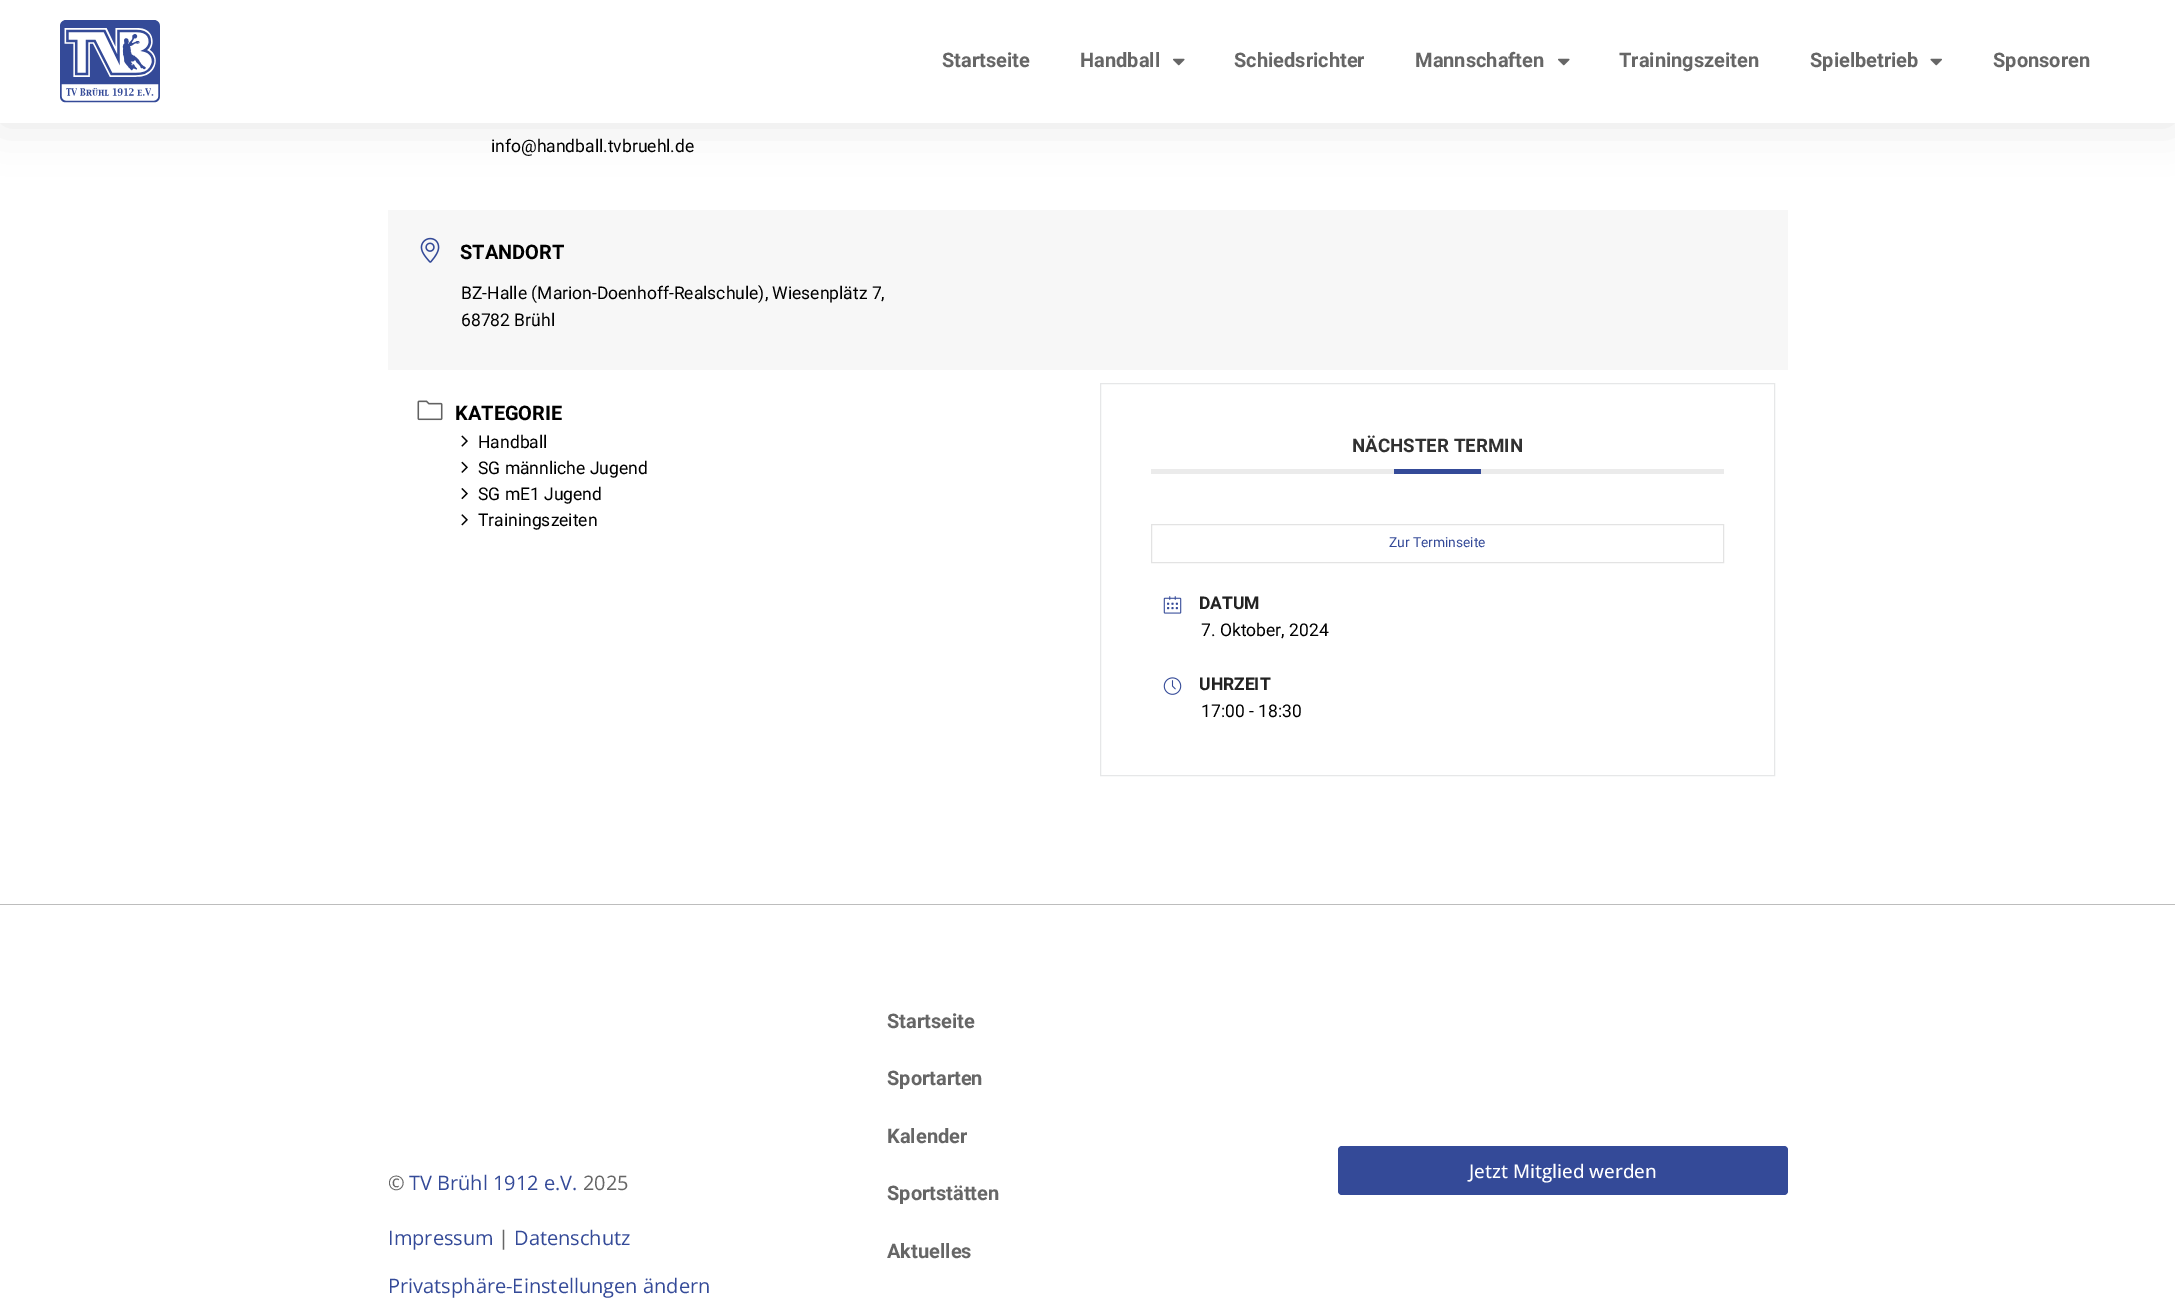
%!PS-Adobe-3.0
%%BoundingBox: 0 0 2175 1298
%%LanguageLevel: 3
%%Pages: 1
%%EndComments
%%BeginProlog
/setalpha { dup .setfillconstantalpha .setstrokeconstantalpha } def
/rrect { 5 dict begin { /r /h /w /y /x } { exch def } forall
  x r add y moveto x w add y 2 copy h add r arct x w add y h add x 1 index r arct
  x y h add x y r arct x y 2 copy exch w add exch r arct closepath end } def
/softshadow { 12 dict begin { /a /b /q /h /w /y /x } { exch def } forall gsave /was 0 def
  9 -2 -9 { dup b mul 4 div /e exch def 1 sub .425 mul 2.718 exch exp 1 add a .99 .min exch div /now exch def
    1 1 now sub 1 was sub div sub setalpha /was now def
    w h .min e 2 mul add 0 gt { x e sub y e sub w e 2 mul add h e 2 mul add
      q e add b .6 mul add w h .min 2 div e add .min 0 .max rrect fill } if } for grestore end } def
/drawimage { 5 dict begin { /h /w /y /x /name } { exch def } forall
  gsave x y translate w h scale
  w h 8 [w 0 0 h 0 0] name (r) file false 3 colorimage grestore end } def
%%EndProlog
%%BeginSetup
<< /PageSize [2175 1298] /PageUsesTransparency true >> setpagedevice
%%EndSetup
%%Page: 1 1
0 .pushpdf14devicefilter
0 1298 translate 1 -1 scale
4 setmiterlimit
1 setgray
0 0 2175 1298 rectfill
0 setgray
0 0 2175 123 0 24 0.1 softshadow
1 setgray
0 0 2175 123 rectfill
(images/1.raw) 60 20 100 83 drawimage
(images/2.raw) 1173 58 12 8 drawimage
(images/2.raw) 1558 58 12 8 drawimage
(images/3.raw) 1930 58 12 8 drawimage
0.969 setgray
388 210 1400 160 rectfill
(images/4.raw) 420 237 20 26 drawimage
(images/5.raw) 417 400 26 21 drawimage
(images/6.raw) 461 435 7 12 drawimage
(images/7.raw) 461 461 7 12 drawimage
(images/8.raw) 461 488 7 12 drawimage
(images/9.raw) 461 514 7 12 drawimage
0.902 0.906 0.91 setrgbcolor
1100.5 383.5 674 392 rectstroke
0.922 setgray
1151 469 573 5 rectfill
0.204 0.29 0.596 setrgbcolor
1394 469 87 5 rectfill
0.89 setgray
1151.5 524.5 572 38 rectstroke
(images/10.raw) 1163 596 19 18 drawimage
(images/11.raw) 1163 677 19 18 drawimage
0.741 setgray
0 904 2175 1 rectfill
0.204 0.29 0.596 setrgbcolor
1338 1146 450 49 4 rrect fill
/Roboto-Bold [20 0 0 -20 0 0] selectfont
0.4 setgray
942 67 moveto (Startseite) show
1080 67 moveto (Handball) show
1234 67 moveto (Schiedsrichter) show
1415 67 moveto (Mannschaften) show
1619 67 moveto (Trainingszeiten) show
1810 67 moveto (Spielbetrieb) show
1993 67 moveto (Sponsoren) show
/Roboto-Regular [17.5 0 0 -17.5 0 0] selectfont
0 setgray
491 152 moveto (info@handball.tvbruehl.de) show
/Roboto-Bold [20 0 0 -20 0 0] selectfont
460 259 moveto (STANDORT) show
/Roboto-Regular [17.5 0 0 -17.5 0 0] selectfont
461 299 moveto (BZ-Halle \(Marion-Doenhoff-Realschule\), Wiesenplätz 7,) show
461 326 moveto (68782 Brühl) show
/Roboto-Bold [20 0 0 -20 0 0] selectfont
455 420 moveto (KATEGORIE) show
/Roboto-Regular [17.5 0 0 -17.5 0 0] selectfont
478 448 moveto (Handball) show
478 474 moveto (SG männliche Jugend) show
478 500 moveto (SG mE1 Jugend) show
478 526 moveto (Trainingszeiten) show
/Roboto-Bold [18.75 0 0 -18.75 0 0] selectfont
0.192 setgray
1352 452 moveto (NÄCHSTER TERMIN) show
/Roboto-Regular [13.75 0 0 -13.75 0 0] selectfont
0.204 0.29 0.596 setrgbcolor
1389 547 moveto (Zur Terminseite) show
/Roboto-Bold [17.5 0 0 -17.5 0 0] selectfont
0.133 setgray
1199 609 moveto (DATUM) show
/Roboto-Regular [17.5 0 0 -17.5 0 0] selectfont
0 setgray
1201 636 moveto (7. Oktober, 2024) show
/Roboto-Bold [17.5 0 0 -17.5 0 0] selectfont
0.133 setgray
1199 690 moveto (UHRZEIT) show
/Roboto-Regular [17.5 0 0 -17.5 0 0] selectfont
0 setgray
1201 717 moveto (17:00 - 18:30) show
/OpenSans-Regular [20 0 0 -20 0 0] selectfont
0.4 setgray
388 1190 moveto (©) show
0.204 0.29 0.596 setrgbcolor
409 1190 moveto (TV Brühl 1912 e.V.) show
0.4 setgray
583 1190 moveto (2025) show
0.204 0.29 0.596 setrgbcolor
388 1245 moveto (Impressum) show
0.4 setgray
498 1245 moveto (|) show
0.204 0.29 0.596 setrgbcolor
514 1245 moveto (Datenschutz) show
388 1293 moveto (Privatsphäre-Einstellungen ändern) show
/Roboto-Bold [20 0 0 -20 0 0] selectfont
0.4 setgray
887 1028 moveto (Startseite) show
887 1085 moveto (Sportarten) show
887 1143 moveto (Kalender) show
887 1200 moveto (Sportstätten) show
887 1258 moveto (Aktuelles) show
/OpenSans-Medium [18.75 0 0 -18.75 0 0] selectfont
1 setgray
1469 1178 moveto (Jetzt Mitglied werden) show
.poppdf14devicefilter showpage
%%EOF
